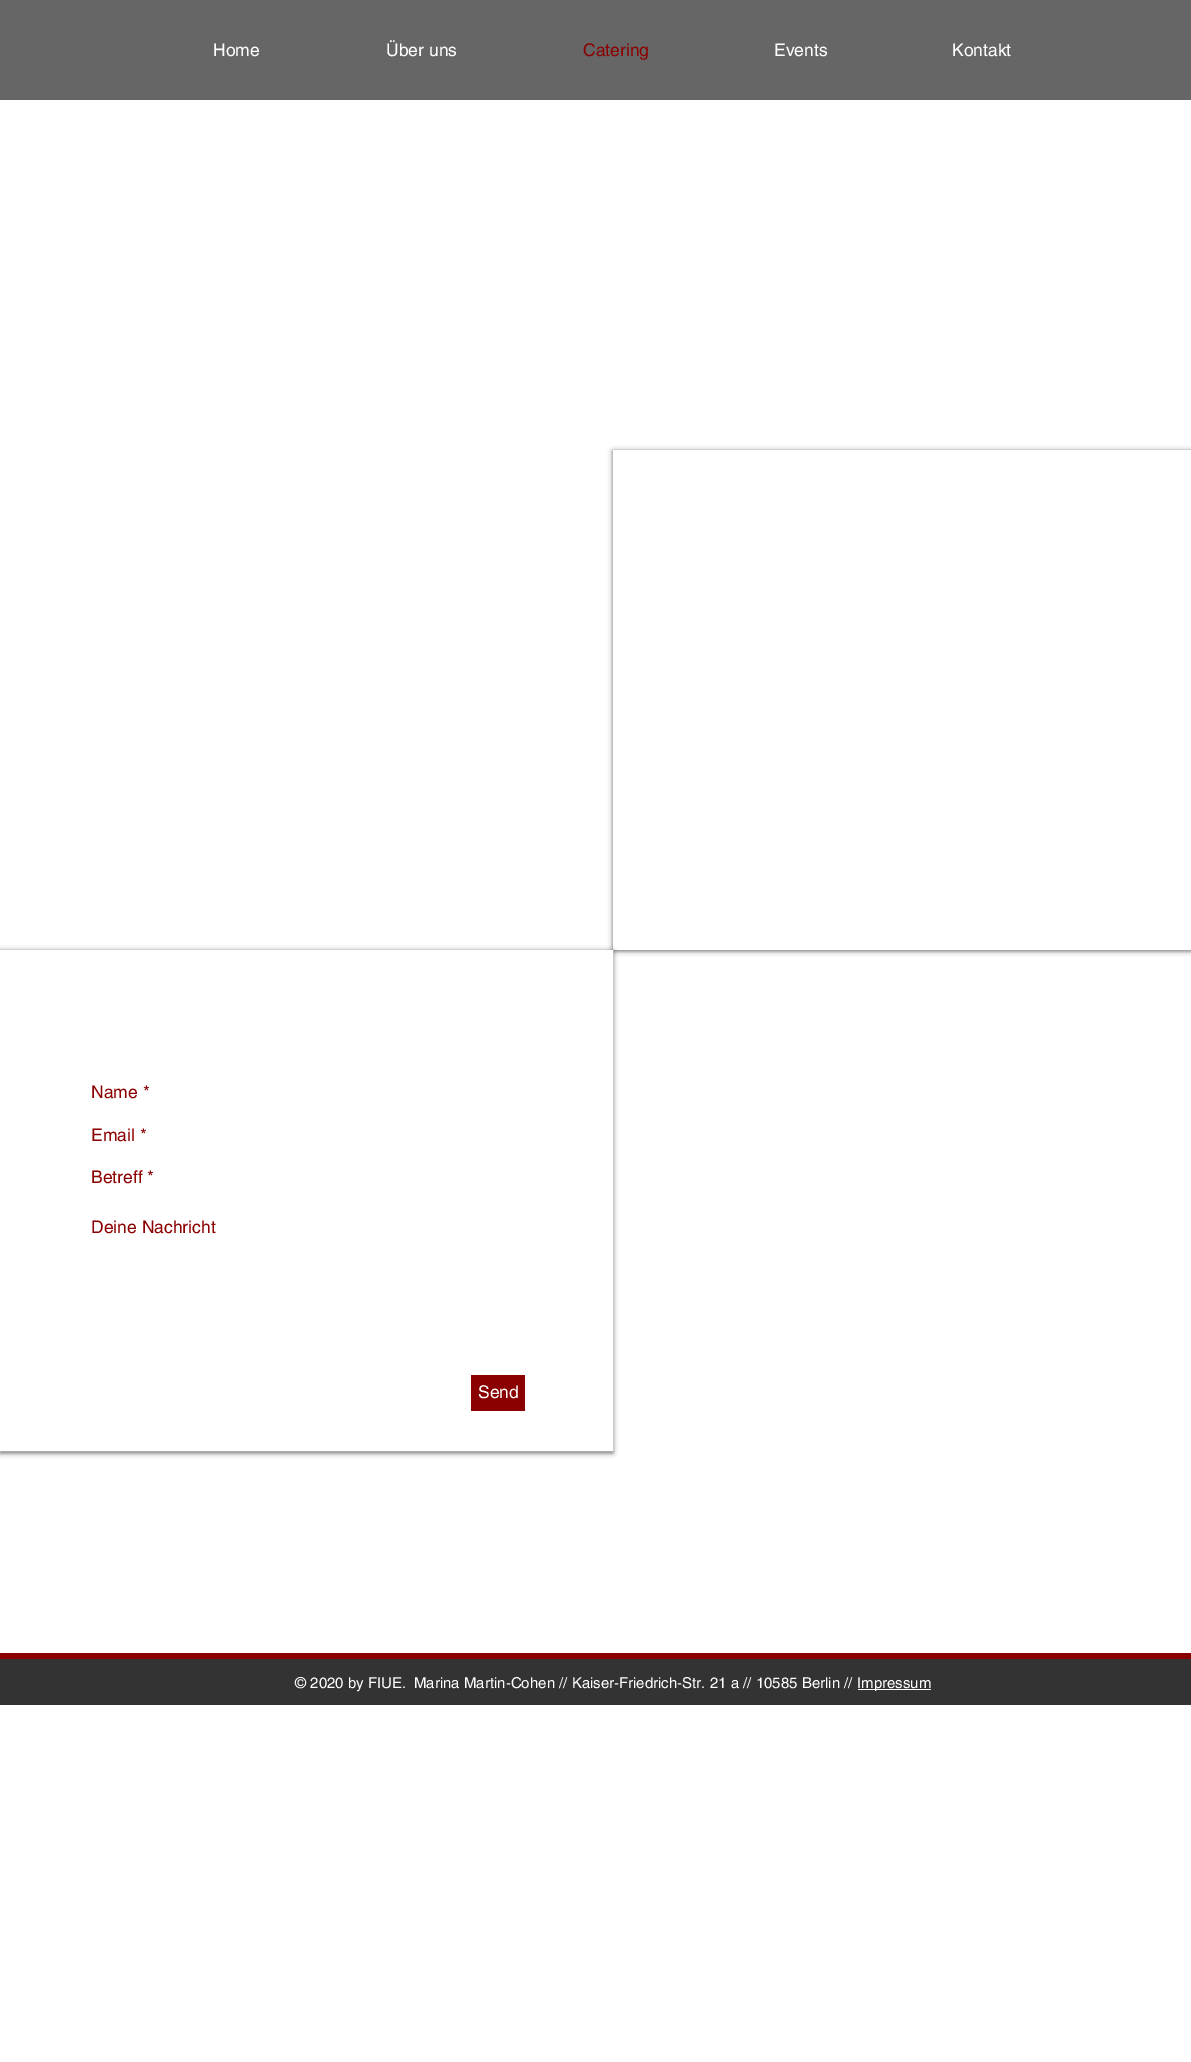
%!PS-Adobe-3.0
%%BoundingBox: 0 0 1191 2062
%%LanguageLevel: 3
%%Pages: 1
%%EndComments
%%BeginProlog
/setalpha { dup .setfillconstantalpha .setstrokeconstantalpha } def
/rrect { 5 dict begin { /r /h /w /y /x } { exch def } forall
  x r add y moveto x w add y 2 copy h add r arct x w add y h add x 1 index r arct
  x y h add x y r arct x y 2 copy exch w add exch r arct closepath end } def
/softshadow { 12 dict begin { /a /b /q /h /w /y /x } { exch def } forall gsave /was 0 def
  9 -2 -9 { dup b mul 4 div /e exch def 1 sub .425 mul 2.718 exch exp 1 add a .99 .min exch div /now exch def
    1 1 now sub 1 was sub div sub setalpha /was now def
    w h .min e 2 mul add 0 gt { x e sub y e sub w e 2 mul add h e 2 mul add
      q e add b .6 mul add w h .min 2 div e add .min 0 .max rrect fill } if } for grestore end } def
%%EndProlog
%%BeginSetup
<< /PageSize [1191 2062] /PageUsesTransparency true >> setpagedevice
%%EndSetup
%%Page: 1 1
0 .pushpdf14devicefilter
0 2062 translate 1 -1 scale
4 setmiterlimit
1 setgray
0 0 1191 2062 rectfill
0.4 setgray
0 0 1191 100 rectfill
gsave
newpath 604 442 moveto 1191 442 lineto 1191 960 lineto 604 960 lineto closepath 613 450 moveto 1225 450 lineto 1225 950 lineto 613 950 lineto closepath eoclip newpath
0 setgray
613 451 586 500 0 2.5 0.6 softshadow
grestore
gsave
newpath 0 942 moveto 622 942 lineto 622 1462 lineto 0 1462 lineto closepath 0 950 moveto 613 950 lineto 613 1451 lineto 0 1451 lineto closepath eoclip newpath
0 setgray
0 951 613 502 0 2.5 0.6 softshadow
grestore
1 setgray
3 setlinewidth
1.5 951.5 610 498 rectstroke
0.545 0 0 setrgbcolor
471 1375 54 36 rectfill
0.2 setgray
0 1659 1191 46 rectfill
0.545 0 0 setrgbcolor
0 1653 1191 6 rectfill
1 setgray
858 1689 73 1 rectfill
/helvetica-Regular [17.5 0 0 -17.5 0 0] selectfont
213 56 moveto (Home) show
386 56 moveto (Über uns) show
0.545 0 0 setrgbcolor
583 56 moveto (Catering) show
1 setgray
774 56 moveto (Events) show
952 56 moveto (Kontakt) show
0.545 0 0 setrgbcolor
91 1098 moveto (Name *) show
91 1141 moveto (Email *) show
91 1183 moveto (Betreff *) show
91 1233 moveto (Deine Nachricht) show
1 setgray
478 1398 moveto (Send) show
/helvetica-Regular [15 0 0 -15 0 0] selectfont
295 1688 moveto (© 2020 by FIUE.) show
414 1688 moveto (Marina Martin-Cohen // Kaiser-Friedrich-Str. 21 a // 10585 Berlin //) show
857 1688 moveto (Impressum) show
.poppdf14devicefilter showpage
%%EOF
